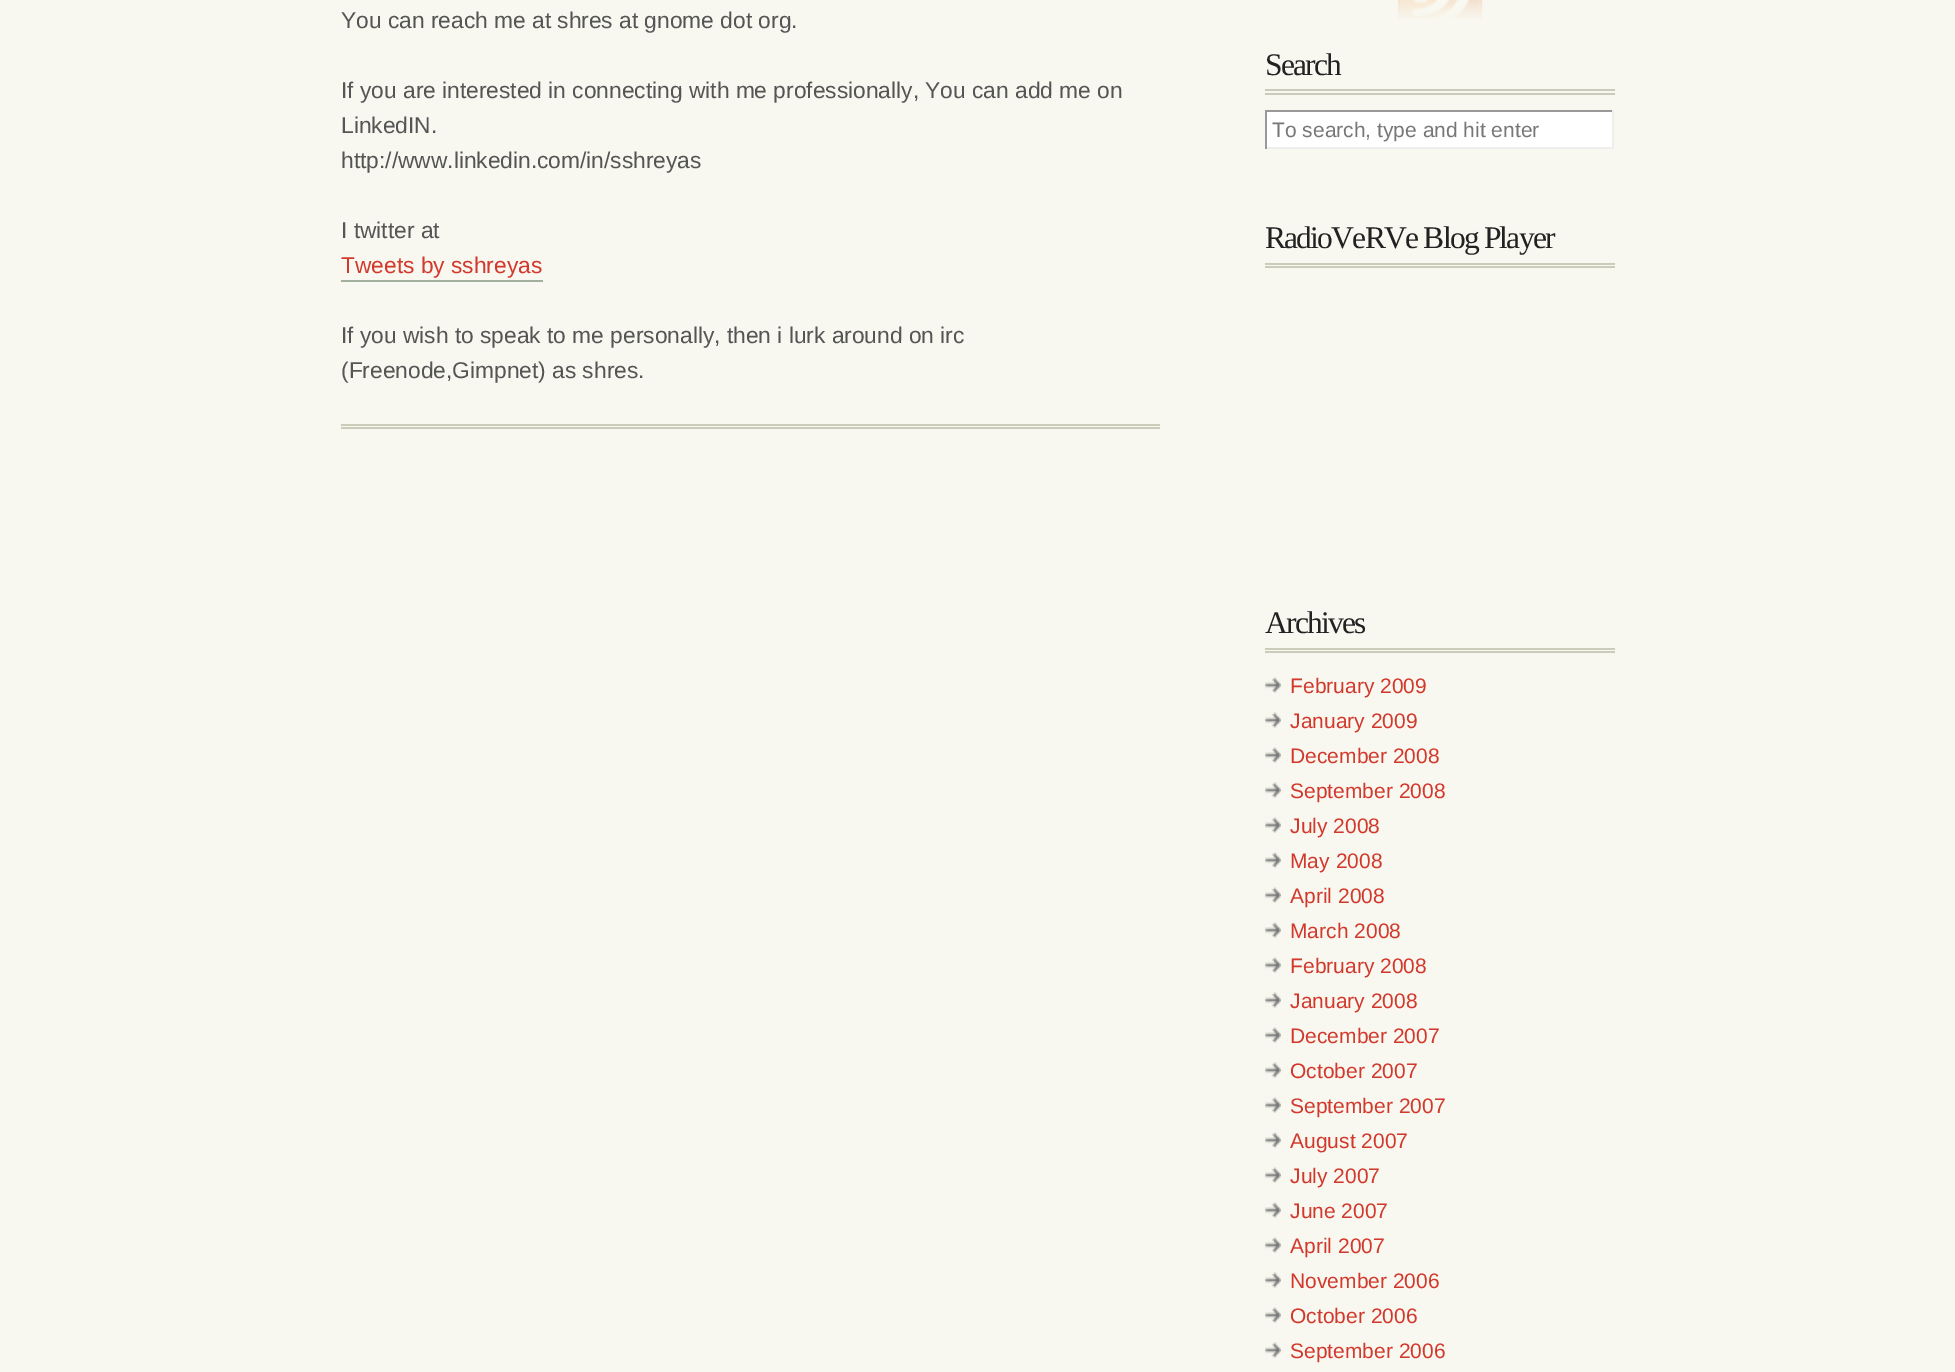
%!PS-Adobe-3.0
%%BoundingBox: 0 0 1955 1372
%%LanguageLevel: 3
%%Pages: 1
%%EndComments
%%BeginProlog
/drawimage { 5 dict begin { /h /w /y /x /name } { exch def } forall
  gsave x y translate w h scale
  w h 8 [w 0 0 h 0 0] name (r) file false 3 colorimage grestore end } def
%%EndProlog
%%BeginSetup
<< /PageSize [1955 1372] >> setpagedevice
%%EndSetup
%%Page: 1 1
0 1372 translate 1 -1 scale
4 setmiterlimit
0.973 0.973 0.941 setrgbcolor
0 0 1955 1372 rectfill
0.8 0.8 0.729 setrgbcolor
341 424 819 2 rectfill
341 427 819 2 rectfill
0.635 0.69 0.616 setrgbcolor
341 280 202 2 rectfill
(images/1.raw) 1398 0 85 19 drawimage
0.8 0.8 0.729 setrgbcolor
1265 89 350 2 rectfill
1265 93 350 2 rectfill
1 setgray
1267 112 345 35 rectfill
0.6 setgray
1265 110 349 2 rectfill
0.933 setgray
1612 110 2 39 rectfill
1265 147 349 2 rectfill
0.6 setgray
1265 110 2 39 rectfill
0.8 0.8 0.729 setrgbcolor
1265 263 350 2 rectfill
1265 266 350 2 rectfill
1265 648 350 2 rectfill
1265 651 350 2 rectfill
(images/2.raw) 1265 677 16 16 drawimage
(images/2.raw) 1265 712 16 16 drawimage
(images/2.raw) 1265 747 16 16 drawimage
(images/2.raw) 1265 782 16 16 drawimage
(images/2.raw) 1265 817 16 16 drawimage
(images/2.raw) 1265 852 16 16 drawimage
(images/2.raw) 1265 887 16 16 drawimage
(images/2.raw) 1265 922 16 16 drawimage
(images/2.raw) 1265 957 16 16 drawimage
(images/2.raw) 1265 992 16 16 drawimage
(images/2.raw) 1265 1027 16 16 drawimage
(images/2.raw) 1265 1062 16 16 drawimage
(images/2.raw) 1265 1097 16 16 drawimage
(images/2.raw) 1265 1132 16 16 drawimage
(images/2.raw) 1265 1167 16 16 drawimage
(images/2.raw) 1265 1202 16 16 drawimage
(images/2.raw) 1265 1237 16 16 drawimage
(images/2.raw) 1265 1272 16 16 drawimage
(images/2.raw) 1265 1307 16 16 drawimage
(images/2.raw) 1265 1342 16 16 drawimage
/LiberationSans-Regular [22.75 0 0 -22.75 0 0] selectfont
0.333 setgray
341 28 moveto (You can reach me at shres at gnome dot org.) show
341 98 moveto (If you are interested in connecting with me professionally, You can add me on) show
341 133 moveto (LinkedIN.) show
341 168 moveto (http://www.linkedin.com/in/sshreyas) show
341 238 moveto (I twitter at) show
0.824 0.22 0.173 setrgbcolor
341 273 moveto (Tweets by sshreyas) show
0.333 setgray
341 343 moveto (If you wish to speak to me personally, then i lurk around on irc) show
341 378 moveto (\(Freenode,Gimpnet\) as shres.) show
/LiberationSerif-Regular [31.5 0 0 -31.5 0 0] selectfont
0.133 setgray
1265 75 moveto -1.75 0 (Search) ashow
/LiberationSans-Regular [21 0 0 -21 0 0] selectfont
0.467 setgray
1272 137 moveto (To search, type and hit enter) show
/LiberationSerif-Regular [31.5 0 0 -31.5 0 0] selectfont
0.133 setgray
1265 248 moveto -1.75 0 (RadioVeRVe Blog Player) ashow
1265 633 moveto -1.75 0 (Archives) ashow
/LiberationSans-Regular [21 0 0 -21 0 0] selectfont
0.824 0.22 0.173 setrgbcolor
1290 693 moveto (February 2009) show
1290 728 moveto (January 2009) show
1290 763 moveto (December 2008) show
1290 798 moveto (September 2008) show
1290 833 moveto (July 2008) show
1290 868 moveto (May 2008) show
1290 903 moveto (April 2008) show
1290 938 moveto (March 2008) show
1290 973 moveto (February 2008) show
1290 1008 moveto (January 2008) show
1290 1043 moveto (December 2007) show
1290 1078 moveto (October 2007) show
1290 1113 moveto (September 2007) show
1290 1148 moveto (August 2007) show
1290 1183 moveto (July 2007) show
1290 1218 moveto (June 2007) show
1290 1253 moveto (April 2007) show
1290 1288 moveto (November 2006) show
1290 1323 moveto (October 2006) show
1290 1358 moveto (September 2006) show
showpage
%%EOF
